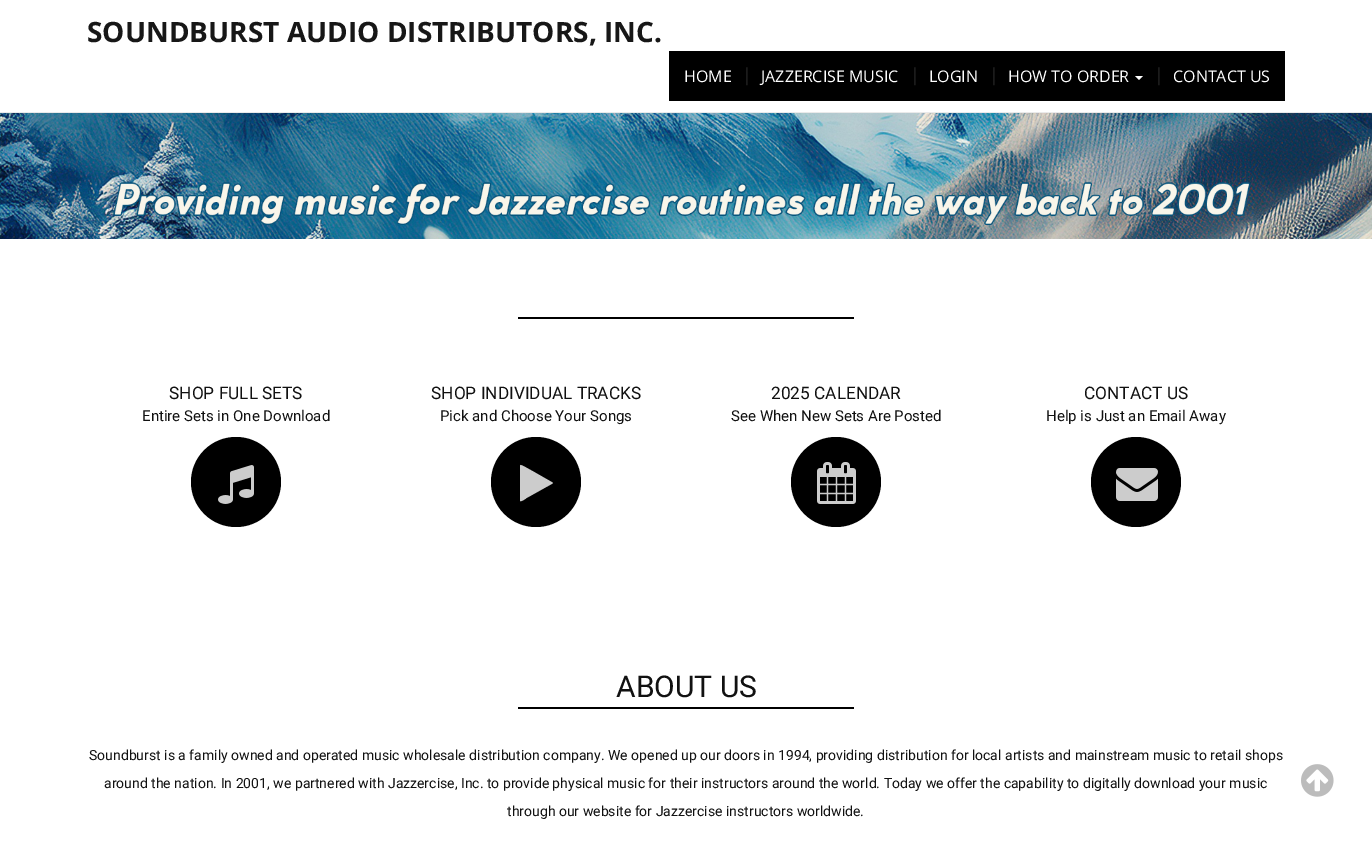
%!PS-Adobe-3.0
%%BoundingBox: 0 0 1372 846
%%LanguageLevel: 3
%%Pages: 1
%%EndComments
%%BeginProlog
/drawimage { 5 dict begin { /h /w /y /x /name } { exch def } forall
  gsave x y translate w h scale
  w h 8 [w 0 0 h 0 0] name (r) file false 3 colorimage grestore end } def
%%EndProlog
%%BeginSetup
<< /PageSize [1372 846] >> setpagedevice
%%EndSetup
%%Page: 1 1
0 846 translate 1 -1 scale
4 setmiterlimit
1 setgray
0 0 1372 846 rectfill
0.918 setgray
0 112 1372 1 rectfill
0 setgray
669 51 616 50 rectfill
1 setgray
newpath 1135 76 moveto 1143 76 lineto 1139 80 lineto closepath fill
(images/1.raw) 0 113 1372 126 drawimage
0 setgray
518 317 336 2 rectfill
newpath 236 482 45 0 360 arc closepath fill
(images/2.raw) 218 465 36 39 drawimage
newpath 536 482 45 0 360 arc closepath fill
0.8 setgray
newpath 552.5 483.5 moveto 526.5 498 lineto 526 498.5 521 502 520 501 curveto 520 465.5 lineto 520.5 465 lineto 521.5 464.5 540 475.5 542 476.5 curveto 552.5 482.5 lineto 553 483 lineto closepath fill
0 setgray
newpath 836 482 45 0 360 arc closepath fill
(images/3.raw) 817 462 39 42 drawimage
newpath 1136 482 45 0 360 arc closepath fill
(images/4.raw) 1116 468 42 33 drawimage
518 707 336 2 rectfill
(images/5.raw) 1301 764 33 33 drawimage
/OpenSans-Bold [28 0 0 -28 0 0] selectfont
0.09 setgray
87 42 moveto (SOUNDBURST AUDIO DISTRIBUTORS, INC.) show
/OpenSans-Regular [16 0 0 -16 0 0] selectfont
1 setgray
684 82 moveto (HOME) show
/OpenSans-Regular [18 0 0 -18 0 0] selectfont
0.149 setgray
742 81 moveto (|) show
/OpenSans-Regular [16 0 0 -16 0 0] selectfont
1 setgray
761 82 moveto (JAZZERCISE MUSIC) show
/OpenSans-Regular [18 0 0 -18 0 0] selectfont
0.149 setgray
910 81 moveto (|) show
/OpenSans-Regular [16 0 0 -16 0 0] selectfont
1 setgray
929 82 moveto (LOGIN) show
/OpenSans-Regular [18 0 0 -18 0 0] selectfont
0.149 setgray
989 81 moveto (|) show
/OpenSans-Regular [16 0 0 -16 0 0] selectfont
1 setgray
1008 82 moveto (HOW TO ORDER) show
/OpenSans-Regular [18 0 0 -18 0 0] selectfont
0.149 setgray
1154 81 moveto (|) show
/OpenSans-Regular [16 0 0 -16 0 0] selectfont
1 setgray
1173 82 moveto (CONTACT US) show
/Roboto-Regular [17.25 0 0 -17.25 0 0] selectfont
0.067 setgray
169 399 moveto (SHOP FULL SETS) show
/Roboto-Regular [15 0 0 -15 0 0] selectfont
142 421 moveto (Entire Sets in One Download) show
/Roboto-Regular [17.25 0 0 -17.25 0 0] selectfont
431 399 moveto (SHOP INDIVIDUAL TRACKS) show
/Roboto-Regular [15 0 0 -15 0 0] selectfont
440 421 moveto (Pick and Choose Your Songs) show
/Roboto-Regular [17.25 0 0 -17.25 0 0] selectfont
771 399 moveto (2025 CALENDAR) show
/Roboto-Regular [15 0 0 -15 0 0] selectfont
731 421 moveto (See When New Sets Are Posted) show
/Roboto-Regular [17.25 0 0 -17.25 0 0] selectfont
1084 399 moveto (CONTACT US) show
/Roboto-Regular [15 0 0 -15 0 0] selectfont
1046 421 moveto (Help is Just an Email Away) show
/Roboto-Regular [30 0 0 -30 0 0] selectfont
616 697 moveto (ABOUT US) show
/Roboto-Regular [14 0 0 -14 0 0] selectfont
89 760 moveto (Soundburst is a family owned and operated music wholesale distribution company. We opened up our doors in 1994, providing distribution for local artists and mainstream music to retail shops) show
104 788 moveto (around the nation. In 2001, we partnered with Jazzercise, Inc. to provide physical music for their instructors around the world. Today we offer the capability to digitally download your music) show
507 816 moveto (through our website for Jazzercise instructors worldwide.) show
showpage
%%EOF
